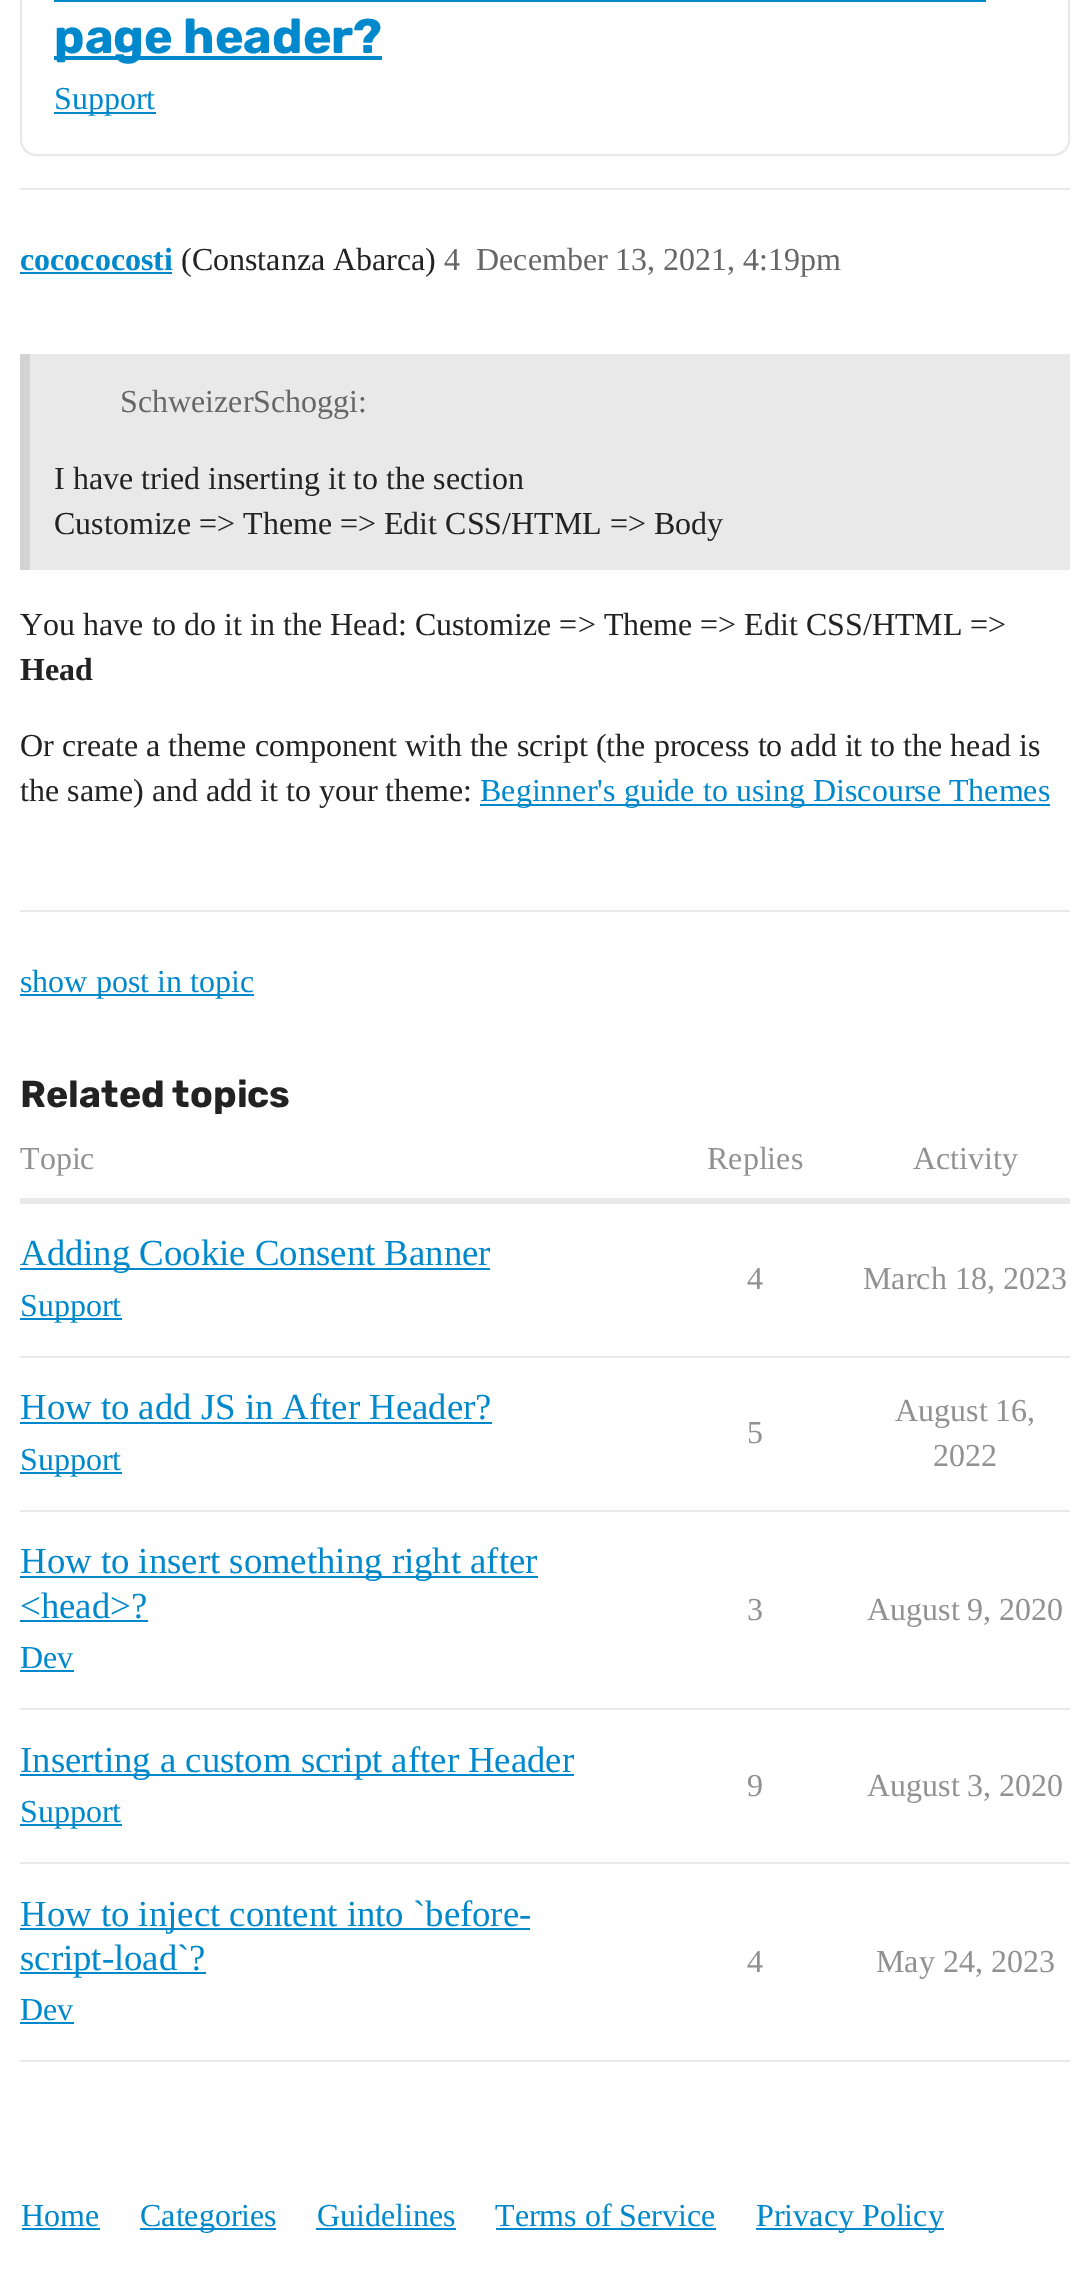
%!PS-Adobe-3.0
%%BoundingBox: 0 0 1089 2289
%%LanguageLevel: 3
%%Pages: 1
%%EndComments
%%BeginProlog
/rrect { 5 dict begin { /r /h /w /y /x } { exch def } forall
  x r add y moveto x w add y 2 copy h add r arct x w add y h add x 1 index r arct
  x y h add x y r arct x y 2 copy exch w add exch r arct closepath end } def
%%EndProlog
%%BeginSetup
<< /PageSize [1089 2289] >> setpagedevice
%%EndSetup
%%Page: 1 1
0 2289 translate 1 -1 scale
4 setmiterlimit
1 setgray
0 0 1089 2289 rectfill
0.914 setgray
2 setlinewidth
21 -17 1048 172 15 rrect stroke
0 0.533 0.8 setrgbcolor
54 0 932 2 rectfill
54 56 328 4 rectfill
54 112 102 2 rectfill
0.914 setgray
20 188 1050 2 rectfill
0 0.533 0.8 setrgbcolor
20 272 152 2 rectfill
0.914 setgray
30 354 1040 216 rectfill
0.827 setgray
20 354 10 216 rectfill
0 0.533 0.8 setrgbcolor
480 804 570 2 rectfill
0.914 setgray
20 910 1050 2 rectfill
0 0.533 0.8 setrgbcolor
20 994 234 2 rectfill
0.914 setgray
20 1198 1050 6 rectfill
20 1356 1050 2 rectfill
0 0.533 0.8 setrgbcolor
20 1268 470 2 rectfill
20 1318 102 2 rectfill
0.914 setgray
20 1510 1050 2 rectfill
0 0.533 0.8 setrgbcolor
20 1422 472 2 rectfill
20 1472 102 2 rectfill
0.914 setgray
20 1708 1050 2 rectfill
0 0.533 0.8 setrgbcolor
20 1576 518 2 rectfill
20 1620 128 2 rectfill
20 1670 54 2 rectfill
0.914 setgray
20 1862 1050 2 rectfill
0 0.533 0.8 setrgbcolor
20 1774 554 2 rectfill
20 1824 102 2 rectfill
0.914 setgray
20 2060 1050 2 rectfill
0 0.533 0.8 setrgbcolor
20 1928 510 2 rectfill
20 1972 186 2 rectfill
20 2022 54 2 rectfill
22 2228 78 2 rectfill
140 2228 136 2 rectfill
316 2228 140 2 rectfill
496 2228 220 2 rectfill
756 2228 188 2 rectfill
/Rubik-Bold [48.5 0 0 -48.5 0 0] selectfont
54 53 moveto (page header?) show
/LiberationSerif-Regular [32 0 0 -32 0 0] selectfont
54 109 moveto (Support) show
/LiberationSerif-Bold [32 0 0 -32 0 0] selectfont
20 270 moveto (cocococosti) show
/LiberationSerif-Regular [32 0 0 -32 0 0] selectfont
0.133 setgray
181 270 moveto (\(Constanza Abarca\)) show
0.4 setgray
444 270 moveto (4) show
476 270 moveto (December 13, 2021, 4:19pm) show
120 412 moveto (SchweizerSchoggi:) show
0.133 setgray
54 489 moveto (I have tried inserting it to the section) show
54 534 moveto (Customize => Theme => Edit CSS/HTML => Body) show
20 635 moveto (You have to do it in the Head: Customize => Theme => Edit CSS/HTML =>) show
/LiberationSerif-Bold [32 0 0 -32 0 0] selectfont
20 680 moveto (Head) show
/LiberationSerif-Regular [32 0 0 -32 0 0] selectfont
20 756 moveto (Or create a theme component with the script \(the process to add it to the head is) show
20 801 moveto (the same\) and add it to your theme:) show
0 0.533 0.8 setrgbcolor
480 801 moveto (Beginner's guide to using Discourse Themes) show
20 992 moveto (show post in topic) show
/Rubik-Bold [37.5 0 0 -37.5 0 0] selectfont
0.133 setgray
20 1107 moveto (Related topics) show
/LiberationSerif-Regular [32 0 0 -32 0 0] selectfont
0.569 setgray
20 1169 moveto (Topic) show
707 1169 moveto (Replies) show
913 1169 moveto (Activity) show
/LiberationSerif-Regular [36.75 0 0 -36.75 0 0] selectfont
0 0.533 0.8 setrgbcolor
20 1265 moveto (Adding Cookie Consent Banner) show
/LiberationSerif-Regular [32 0 0 -32 0 0] selectfont
20 1316 moveto (Support) show
0.569 setgray
747 1289 moveto (4) show
863 1289 moveto (March 18, 2023) show
/LiberationSerif-Regular [36.75 0 0 -36.75 0 0] selectfont
0 0.533 0.8 setrgbcolor
20 1419 moveto (How to add JS in After Header?) show
/LiberationSerif-Regular [32 0 0 -32 0 0] selectfont
20 1470 moveto (Support) show
0.569 setgray
747 1443 moveto (5) show
895 1421 moveto (August 16,) show
933 1466 moveto (2022) show
/LiberationSerif-Regular [36.75 0 0 -36.75 0 0] selectfont
0 0.533 0.8 setrgbcolor
20 1573 moveto (How to insert something right after) show
20 1618 moveto (<head>?) show
/LiberationSerif-Regular [32 0 0 -32 0 0] selectfont
20 1668 moveto (Dev) show
0.569 setgray
747 1620 moveto (3) show
867 1620 moveto (August 9, 2020) show
/LiberationSerif-Regular [36.75 0 0 -36.75 0 0] selectfont
0 0.533 0.8 setrgbcolor
20 1772 moveto (Inserting a custom script after Header) show
/LiberationSerif-Regular [32 0 0 -32 0 0] selectfont
20 1822 moveto (Support) show
0.569 setgray
747 1796 moveto (9) show
867 1796 moveto (August 3, 2020) show
/LiberationSerif-Regular [36.75 0 0 -36.75 0 0] selectfont
0 0.533 0.8 setrgbcolor
20 1926 moveto (How to inject content into `before-) show
20 1970 moveto (script-load`?) show
/LiberationSerif-Regular [32 0 0 -32 0 0] selectfont
20 2020 moveto (Dev) show
0.569 setgray
747 1972 moveto (4) show
876 1972 moveto (May 24, 2023) show
0 0.533 0.8 setrgbcolor
21 2226 moveto (Home) show
140 2226 moveto (Categories) show
317 2226 moveto (Guidelines) show
495 2226 moveto (Terms of Service) show
756 2226 moveto (Privacy Policy) show
showpage
%%EOF
